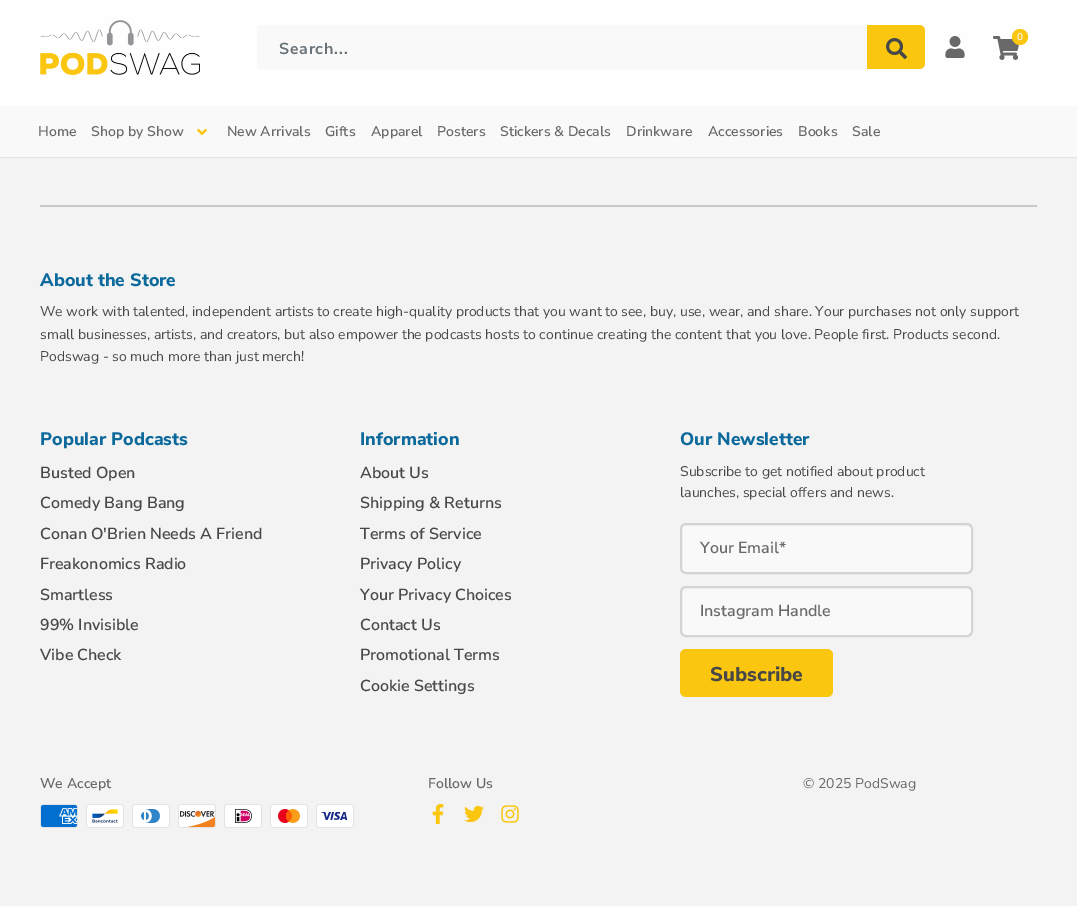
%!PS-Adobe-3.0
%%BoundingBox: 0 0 1077 906
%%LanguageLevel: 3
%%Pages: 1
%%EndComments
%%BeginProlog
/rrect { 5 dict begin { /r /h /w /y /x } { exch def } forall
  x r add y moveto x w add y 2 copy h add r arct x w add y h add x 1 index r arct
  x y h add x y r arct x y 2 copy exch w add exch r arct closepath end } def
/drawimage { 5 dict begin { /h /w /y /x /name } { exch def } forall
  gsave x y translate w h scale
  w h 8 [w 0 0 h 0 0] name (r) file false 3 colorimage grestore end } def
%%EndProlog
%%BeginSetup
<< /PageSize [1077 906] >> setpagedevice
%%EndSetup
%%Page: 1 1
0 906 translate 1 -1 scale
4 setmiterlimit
0.953 setgray
0 0 1077 906 rectfill
1 0.996 1 setrgbcolor
0 0 1077 106 rectfill
(images/1.raw) 40 20 160 55 drawimage
(images/2.raw) 945 36 20 22 drawimage
(images/3.raw) 993 36 27 24 drawimage
0.98 0.776 0.059 setrgbcolor
newpath 1020 37 8 0 360 arc closepath fill
0.976 setgray
257 25 668 44 3 rrect fill
0.98 0.776 0.059 setrgbcolor
newpath 867 25 moveto 919 25 lineto 922.5 25 925 27.5 925 31 curveto 925 63 lineto 925 66.5 922.5 69 919 69 curveto 867 69 lineto closepath fill
(images/4.raw) 886 38 21 21 drawimage
0.976 setgray
0 106 1077 51 rectfill
0.882 0.89 0.894 setrgbcolor
0 157 1077 1 rectfill
(images/5.raw) 197 128 10 8 drawimage
0.784 setgray
40 205 997 2 rectfill
0.976 setgray
680 523 293 51 6 rrect fill
0.953 0.957 0.957 setrgbcolor
newpath 686 526 moveto 967 526 lineto 969 526 971 528 971 530 curveto 971 527 970 525 967 525 curveto 686 525 lineto 683 525 682 527 682 530 curveto 682 528 684 526 686 526 curveto closepath fill
0.831 setgray
2 setlinewidth
681 524 291 49 5 rrect stroke
0.976 setgray
680 586 293 51 6 rrect fill
0.953 0.957 0.957 setrgbcolor
newpath 686 589 moveto 967 589 lineto 969 589 971 591 971 593 curveto 971 590 970 588 967 588 curveto 686 588 lineto 683 588 682 590 682 593 curveto 682 591 684 589 686 589 curveto closepath fill
0.831 setgray
681 587 291 49 5 rrect stroke
0.98 0.776 0.059 setrgbcolor
680 649 153 48 6 rrect fill
(images/6.raw) 40 804 38 24 drawimage
(images/7.raw) 86 804 38 24 drawimage
(images/8.raw) 132 804 38 24 drawimage
(images/9.raw) 178 804 38 24 drawimage
(images/10.raw) 224 804 38 24 drawimage
(images/11.raw) 270 804 38 24 drawimage
(images/12.raw) 316 804 38 24 drawimage
(images/13.raw) 432 804 12 20 drawimage
(images/14.raw) 464 805 20 18 drawimage
(images/15.raw) 501 805 18 18 drawimage
/NunitoSans-SemiBold [10 0 0 -10 0 0] selectfont
0.976 setgray
1017 40 moveto (0) show
/NunitoSans-Bold [16 0 0 -16 0 0] selectfont
0.404 0.447 0.475 setrgbcolor
279 54 moveto 0.75 0 (Search...) ashow
/NunitoSans-SemiBold [14 0 0 -14 0 0] selectfont
0.412 setgray
38 136 moveto (Home) show
91 136 moveto (Shop by Show) show
227 136 moveto (New Arrivals) show
325 136 moveto (Gifts) show
371 136 moveto (Apparel) show
437 136 moveto (Posters) show
500 136 moveto (Stickers & Decals) show
626 136 moveto (Drinkware) show
708 136 moveto (Accessories) show
798 136 moveto (Books) show
852 136 moveto (Sale) show
/NunitoSans-ExtraBold [18 0 0 -18 0 0] selectfont
0.043 0.412 0.612 setrgbcolor
40 286 moveto (About the Store) show
/NunitoSans-Regular [14 0 0 -14 0 0] selectfont
0.278 setgray
40 316 moveto (We work with talented, independent artists to create high-quality products that you want to see, buy, use, wear, and share. Your purchases not only support) show
40 339 moveto (small businesses, artists, and creators, but also empower the podcasts hosts to continue creating the content that you love. People first. Products second.) show
40 361 moveto (Podswag - so much more than just merch!) show
/NunitoSans-ExtraBold [18 0 0 -18 0 0] selectfont
0.043 0.412 0.612 setrgbcolor
40 445 moveto (Popular Podcasts) show
/NunitoSans-SemiBold [16 0 0 -16 0 0] selectfont
0.278 setgray
40 478 moveto (Busted Open) show
40 508 moveto (Comedy Bang Bang) show
40 539 moveto (Conan O'Brien Needs A Friend) show
40 569 moveto (Freakonomics Radio) show
40 600 moveto (Smartless) show
40 630 moveto (99% Invisible) show
40 660 moveto (Vibe Check) show
/NunitoSans-ExtraBold [18 0 0 -18 0 0] selectfont
0.043 0.412 0.612 setrgbcolor
360 445 moveto (Information) show
/NunitoSans-SemiBold [16 0 0 -16 0 0] selectfont
0.278 setgray
360 478 moveto (About Us) show
360 508 moveto (Shipping & Returns) show
360 539 moveto (Terms of Service) show
360 569 moveto (Privacy Policy) show
360 600 moveto (Your Privacy Choices) show
360 630 moveto (Contact Us) show
360 660 moveto (Promotional Terms) show
360 691 moveto (Cookie Settings) show
/NunitoSans-ExtraBold [18 0 0 -18 0 0] selectfont
0.043 0.412 0.612 setrgbcolor
680 445 moveto (Our Newsletter) show
/NunitoSans-Regular [14 0 0 -14 0 0] selectfont
0.278 setgray
680 476 moveto (Subscribe to get notified about product) show
680 497 moveto (launches, special offers and news.) show
/NunitoSans-SemiBold [16 0 0 -16 0 0] selectfont
0.412 setgray
700 553 moveto (Your Email*) show
700 616 moveto (Instagram Handle) show
/NunitoSans-ExtraBold [20 0 0 -20 0 0] selectfont
0.278 setgray
710 681 moveto (Subscribe) show
/NunitoSans-SemiBold [14 0 0 -14 0 0] selectfont
0.412 setgray
40 788 moveto (We Accept) show
428 788 moveto (Follow Us) show
/NunitoSans-Regular [14 0 0 -14 0 0] selectfont
803 788 moveto (© 2025 PodSwag) show
showpage
%%EOF
